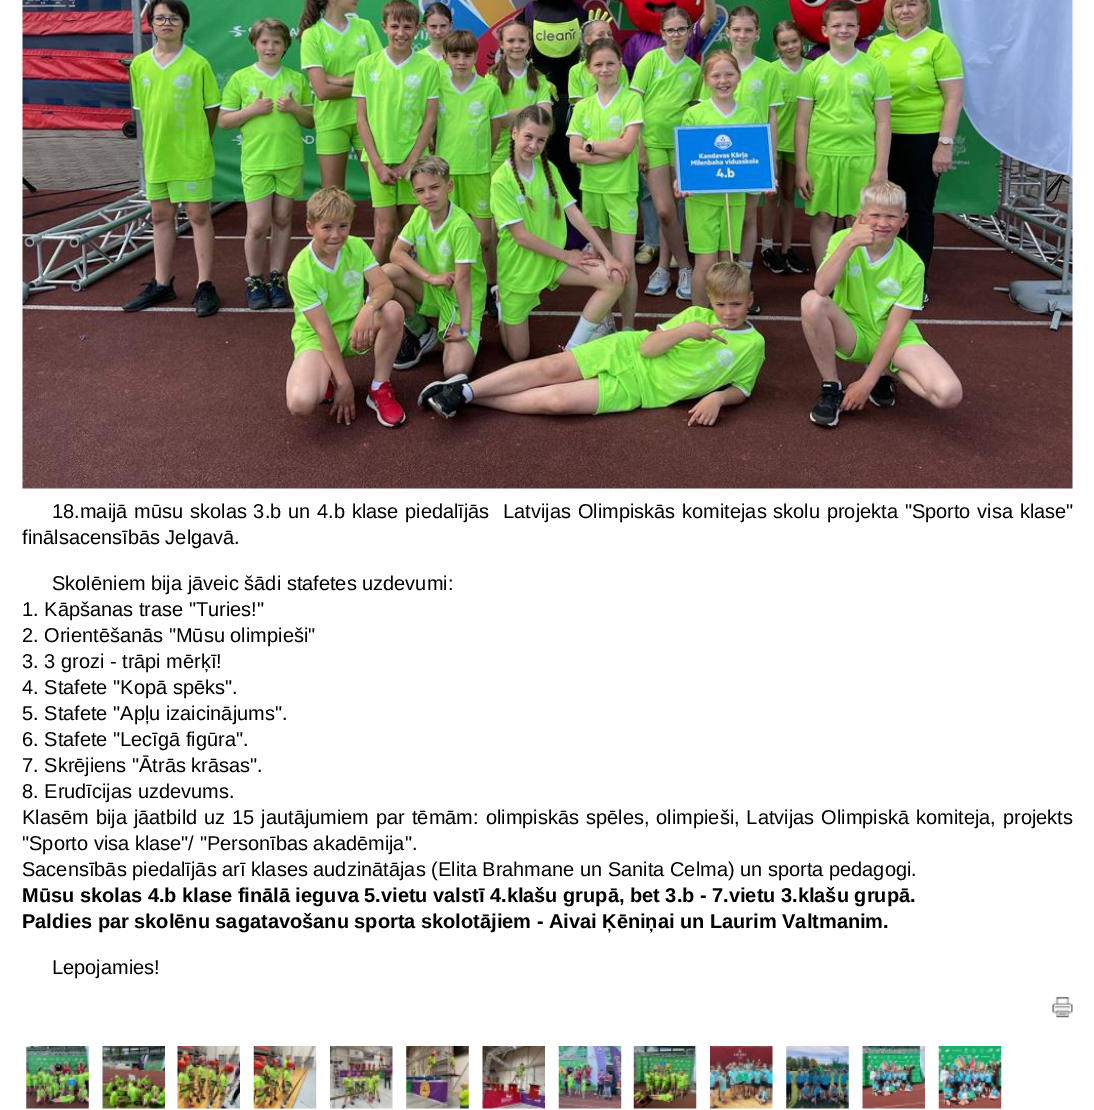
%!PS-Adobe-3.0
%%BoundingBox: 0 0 1094 1110
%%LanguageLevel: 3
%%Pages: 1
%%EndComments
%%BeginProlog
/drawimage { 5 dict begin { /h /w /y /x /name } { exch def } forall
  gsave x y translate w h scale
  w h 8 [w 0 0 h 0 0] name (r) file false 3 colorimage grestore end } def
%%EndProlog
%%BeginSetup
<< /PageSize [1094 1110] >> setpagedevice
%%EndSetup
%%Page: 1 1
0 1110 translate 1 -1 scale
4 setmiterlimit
1 setgray
0 0 1094 1110 rectfill
(images/1.raw) 22 0 1051 489 drawimage
(images/2.raw) 1052 997 21 21 drawimage
(images/3.raw) 26 1046 63 63 drawimage
(images/4.raw) 102 1046 63 63 drawimage
(images/5.raw) 177 1046 63 63 drawimage
(images/6.raw) 253 1046 64 63 drawimage
(images/7.raw) 330 1046 63 63 drawimage
(images/8.raw) 406 1046 63 63 drawimage
(images/9.raw) 482 1046 63 63 drawimage
(images/10.raw) 558 1046 64 63 drawimage
(images/11.raw) 633 1046 64 63 drawimage
(images/12.raw) 710 1046 63 63 drawimage
(images/13.raw) 786 1046 63 63 drawimage
(images/14.raw) 862 1046 63 63 drawimage
(images/15.raw) 938 1046 64 63 drawimage
/LiberationSans-Regular [20 0 0 -20 0 0] selectfont
0 setgray
52 518 moveto 1.2 0 32 (18.maijā mūsu skolas 3.b un 4.b klase piedalījās  Latvijas Olimpiskās komitejas skolu projekta "Sporto visa klase") widthshow
22 544 moveto (finālsacensībās Jelgavā.) show
52 590 moveto (Skolēniem bija jāveic šādi stafetes uzdevumi:) show
22 616 moveto (1. Kāpšanas trase "Turies!") show
22 642 moveto (2. Orientēšanās "Mūsu olimpieši") show
22 668 moveto (3. 3 grozi - trāpi mērķī!) show
22 694 moveto (4. Stafete "Kopā spēks".) show
22 720 moveto (5. Stafete "Apļu izaicinājums".) show
22 746 moveto (6. Stafete "Lecīgā figūra".) show
22 772 moveto (7. Skrējiens "Ātrās krāsas".) show
22 798 moveto (8. Erudīcijas uzdevums.) show
22 824 moveto 1.4 0 32 (Klasēm bija jāatbild uz 15 jautājumiem par tēmām: olimpiskās spēles, olimpieši, Latvijas Olimpiskā komiteja, projekts) widthshow
22 850 moveto ("Sporto visa klase"/ "Personības akadēmija".) show
22 876 moveto (Sacensībās piedalījās arī klases audzinātājas \(Elita Brahmane un Sanita Celma\) un sporta pedagogi.) show
/LiberationSans-Bold [20 0 0 -20 0 0] selectfont
22 902 moveto (Mūsu skolas 4.b klase finālā ieguva 5.vietu valstī 4.klašu grupā, bet 3.b - 7.vietu 3.klašu grupā.) show
22 928 moveto (Paldies par skolēnu sagatavošanu sporta skolotājiem - Aivai Ķēniņai un Laurim Valtmanim.) show
/LiberationSans-Regular [20 0 0 -20 0 0] selectfont
52 974 moveto (Lepojamies!) show
showpage
%%EOF
